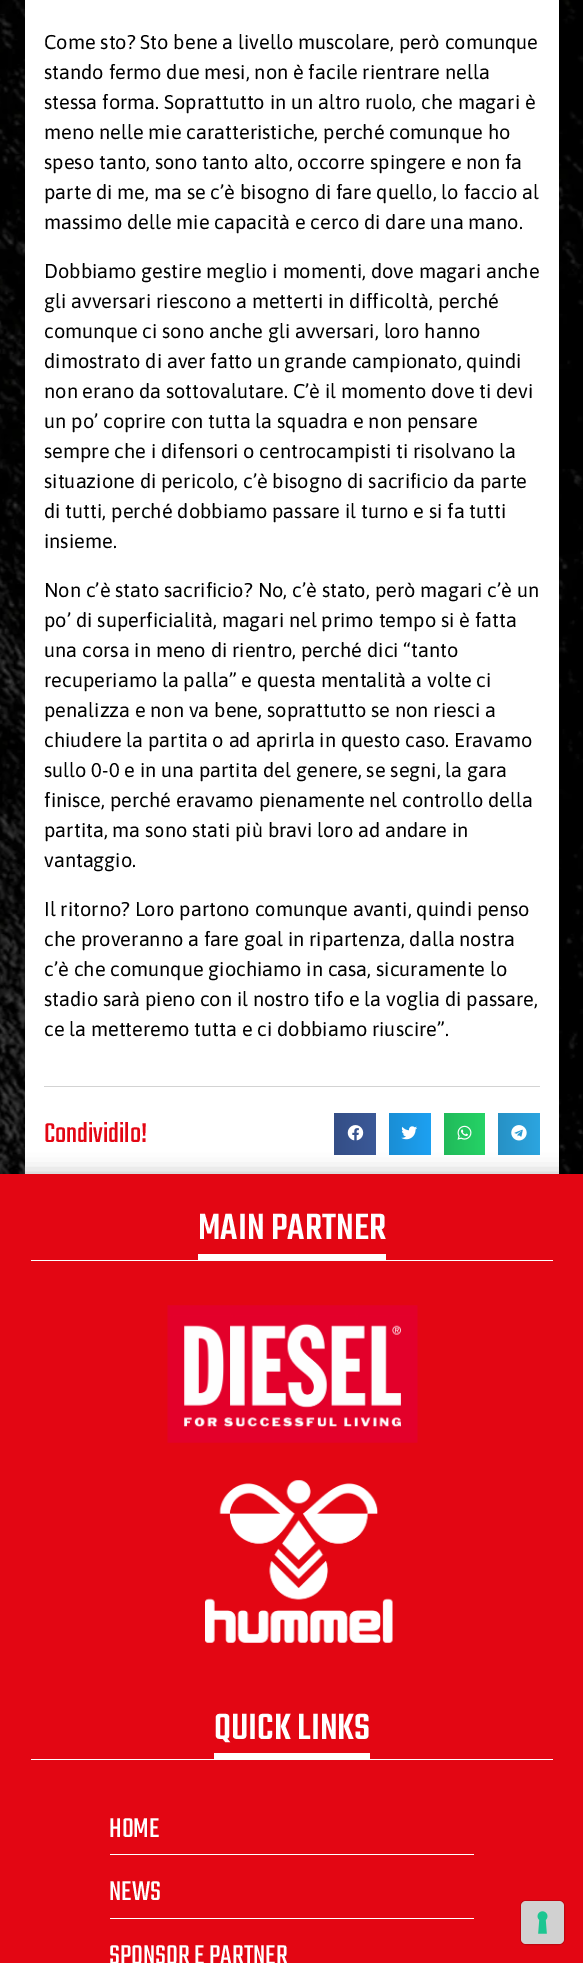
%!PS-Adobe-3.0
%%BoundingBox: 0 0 583 1963
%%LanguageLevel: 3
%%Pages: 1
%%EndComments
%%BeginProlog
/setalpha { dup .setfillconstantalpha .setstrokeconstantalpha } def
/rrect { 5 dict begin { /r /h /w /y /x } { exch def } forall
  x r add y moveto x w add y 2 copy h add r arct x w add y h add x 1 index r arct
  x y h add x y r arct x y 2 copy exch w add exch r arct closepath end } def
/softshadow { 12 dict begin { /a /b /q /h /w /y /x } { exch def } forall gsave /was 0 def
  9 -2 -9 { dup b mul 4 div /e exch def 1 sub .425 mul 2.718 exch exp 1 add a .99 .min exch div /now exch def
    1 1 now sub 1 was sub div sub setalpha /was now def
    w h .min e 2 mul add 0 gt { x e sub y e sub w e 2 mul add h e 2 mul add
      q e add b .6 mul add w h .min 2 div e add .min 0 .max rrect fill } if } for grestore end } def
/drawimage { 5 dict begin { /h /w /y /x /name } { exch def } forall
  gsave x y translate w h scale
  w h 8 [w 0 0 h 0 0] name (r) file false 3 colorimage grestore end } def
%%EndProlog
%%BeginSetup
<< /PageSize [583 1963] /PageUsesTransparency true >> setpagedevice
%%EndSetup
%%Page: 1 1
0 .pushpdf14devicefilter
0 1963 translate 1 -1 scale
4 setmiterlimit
1 setgray
0 0 583 1963 rectfill
(images/1.raw) 0 0 583 1174 drawimage
25 0 534 1174 rectfill
0.827 setgray
44 1086 496 1 rectfill
gsave newpath 334 1113 moveto 376 1113 lineto 376 1155 lineto 334 1155 lineto closepath clip newpath
<< /ShadingType 2 /ColorSpace /DeviceRGB /Coords [334 1134 376 1134] /Extend [true true] /Function << /FunctionType 2 /Domain [0 1] /C0 [0.204 0.306 0.525] /C1 [0.231 0.349 0.596] /N 1 >> >> shfill grestore
(images/2.raw) 347 1125 17 16 drawimage
gsave newpath 389 1113 moveto 431 1113 lineto 431 1155 lineto 389 1155 lineto closepath clip newpath
<< /ShadingType 2 /ColorSpace /DeviceRGB /Coords [389 1134 431 1134] /Extend [true true] /Function << /FunctionType 2 /Domain [0 1] /C0 [0.102 0.557 0.835] /C1 [0.114 0.631 0.949] /N 1 >> >> shfill grestore
(images/3.raw) 401 1126 16 14 drawimage
gsave newpath 444 1113 moveto 485 1113 lineto 485 1155 lineto 444 1155 lineto closepath clip newpath
<< /ShadingType 2 /ColorSpace /DeviceRGB /Coords [444 1134 485 1134] /Extend [true true] /Function << /FunctionType 2 /Domain [0 1] /C0 [0.129 0.729 0.353] /C1 [0.145 0.827 0.4] /N 1 >> >> shfill grestore
(images/4.raw) 457 1125 15 15 drawimage
gsave newpath 498 1113 moveto 540 1113 lineto 540 1155 lineto 498 1155 lineto closepath clip newpath
<< /ShadingType 2 /ColorSpace /DeviceRGB /Coords [498 1134 540 1134] /Extend [true true] /Function << /FunctionType 2 /Domain [0 1] /C0 [0.153 0.569 0.773] /C1 [0.173 0.647 0.878] /N 1 >> >> shfill grestore
(images/5.raw) 511 1125 16 16 drawimage
0 setgray
0 1174 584 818 0 9.5 0.25 softshadow
0.89 0.024 0.075 setrgbcolor
0 1174 583 789 rectfill
1 setgray
198 1254 188 6 rectfill
31 1260 522 1 rectfill
(images/6.raw) 167 1305 251 138 drawimage
(images/7.raw) 205 1480 188 163 drawimage
214 1753 156 6 rectfill
31 1759 522 1 rectfill
110 1854 364 1 rectfill
110 1918 364 1 rectfill
0.757 0.02 0.063 setrgbcolor
520.5 1900.5 44 44 5.5 rrect stroke
0.82 setgray
521 1901 43 43 5 rrect fill
(images/8.raw) 537 1911 11 23 drawimage
/Asap-Regular [20 0 0 -20 0 0] selectfont
0 setgray
44 49 moveto (Come sto? Sto bene a livello muscolare, però comunque) show
44 79 moveto (stando fermo due mesi, non è facile rientrare nella) show
44 109 moveto (stessa forma. Soprattutto in un altro ruolo, che magari è) show
44 139 moveto (meno nelle mie caratteristiche, perché comunque ho) show
44 169 moveto (speso tanto, sono tanto alto, occorre spingere e non fa) show
44 199 moveto (parte di me, ma se c’è bisogno di fare quello, lo faccio al) show
44 229 moveto (massimo delle mie capacità e cerco di dare una mano.) show
44 278 moveto (Dobbiamo gestire meglio i momenti, dove magari anche) show
44 308 moveto (gli avversari riescono a metterti in difficoltà, perché) show
44 338 moveto (comunque ci sono anche gli avversari, loro hanno) show
44 368 moveto (dimostrato di aver fatto un grande campionato, quindi) show
44 398 moveto (non erano da sottovalutare. C’è il momento dove ti devi) show
44 428 moveto (un po’ coprire con tutta la squadra e non pensare) show
44 458 moveto (sempre che i difensori o centrocampisti ti risolvano la) show
44 488 moveto (situazione di pericolo, c’è bisogno di sacrificio da parte) show
44 518 moveto (di tutti, perché dobbiamo passare il turno e si fa tutti) show
44 548 moveto (insieme.) show
44 597 moveto (Non c’è stato sacrificio? No, c’è stato, però magari c’è un) show
44 627 moveto (po’ di superficialità, magari nel primo tempo si è fatta) show
44 657 moveto (una corsa in meno di rientro, perché dici “tanto) show
44 687 moveto (recuperiamo la palla” e questa mentalità a volte ci) show
44 717 moveto (penalizza e non va bene, soprattutto se non riesci a) show
44 747 moveto (chiudere la partita o ad aprirla in questo caso. Eravamo) show
44 777 moveto (sullo 0-0 e in una partita del genere, se segni, la gara) show
44 807 moveto (finisce, perché eravamo pienamente nel controllo della) show
44 837 moveto (partita, ma sono stati più bravi loro ad andare in) show
44 867 moveto (vantaggio.) show
44 916 moveto (Il ritorno? Loro partono comunque avanti, quindi penso) show
44 946 moveto (che proveranno a fare goal in ripartenza, dalla nostra) show
44 976 moveto (c’è che comunque giochiamo in casa, sicuramente lo) show
44 1006 moveto (stadio sarà pieno con il nostro tifo e la voglia di passare,) show
44 1036 moveto (ce la metteremo tutta e ci dobbiamo riuscire”.) show
/Teko-Regular [30 0 0 -30 0 0] selectfont
0.89 0.024 0.075 setrgbcolor
44 1142 moveto (Condividilo!) show
/Teko-Medium [40 0 0 -40 0 0] selectfont
1 setgray
198 1239 moveto (MAIN PARTNER) show
214 1739 moveto (QUICK LINKS) show
/Teko-Regular [30 0 0 -30 0 0] selectfont
109 1837 moveto (HOME) show
109 1900 moveto (NEWS) show
109 1964 moveto (SPONSOR E PARTNER) show
.poppdf14devicefilter showpage
%%EOF
